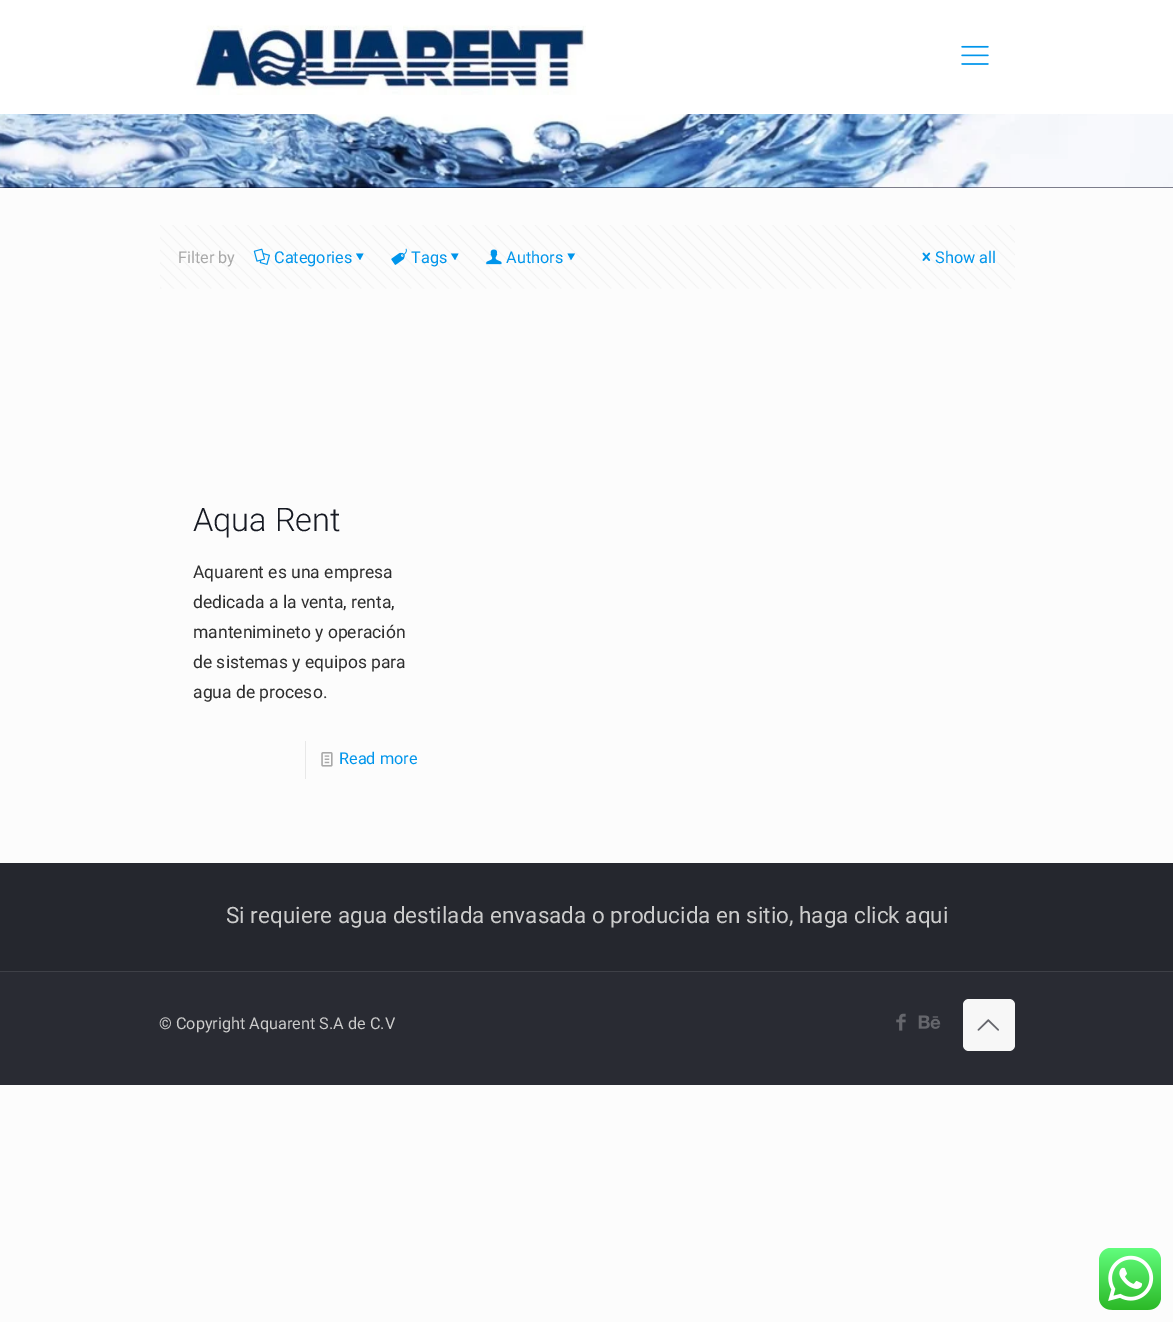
%!PS-Adobe-3.0
%%BoundingBox: 0 0 1173 1322
%%LanguageLevel: 3
%%Pages: 1
%%EndComments
%%BeginProlog
/rrect { 5 dict begin { /r /h /w /y /x } { exch def } forall
  x r add y moveto x w add y 2 copy h add r arct x w add y h add x 1 index r arct
  x y h add x y r arct x y 2 copy exch w add exch r arct closepath end } def
/drawimage { 5 dict begin { /h /w /y /x /name } { exch def } forall
  gsave x y translate w h scale
  w h 8 [w 0 0 h 0 0] name (r) file false 3 colorimage grestore end } def
%%EndProlog
%%BeginSetup
<< /PageSize [1173 1322] >> setpagedevice
%%EndSetup
%%Page: 1 1
0 1322 translate 1 -1 scale
4 setmiterlimit
0.988 setgray
0 0 1173 1322 rectfill
0 0.004 0.098 setrgbcolor
0 187 1173 1 rectfill
(images/1.raw) 0 114 1173 74 drawimage
1 setgray
0 0 1173 114 rectfill
(images/2.raw) 193 25 393 70 drawimage
(images/3.raw) 961 45 28 20 drawimage
(images/4.raw) 160 225 855 64 drawimage
(images/5.raw) 253 248 17 17 drawimage
0 0.584 0.922 setrgbcolor
newpath 363.5 253.5 moveto 360 260 lineto 356 253.5 lineto closepath fill
(images/6.raw) 391 248 16 17 drawimage
newpath 458.5 253.5 moveto 455 260 lineto 451 253.5 lineto closepath fill
(images/7.raw) 486 249 16 16 drawimage
newpath 575 253.5 moveto 571 260 lineto 567.5 253.5 lineto closepath fill
(images/8.raw) 922 252 9 9 drawimage
0.91 setgray
305 741 1 38 rectfill
(images/9.raw) 321 752 12 15 drawimage
0.161 0.169 0.2 setrgbcolor
0 972 1173 113 rectfill
0.145 0.153 0.18 setrgbcolor
0 863 1173 108 rectfill
0.243 0.251 0.278 setrgbcolor
0 971 1173 1 rectfill
(images/10.raw) 896 1013 10 18 drawimage
(images/11.raw) 918 1015 23 14 drawimage
0.969 setgray
963 999 52 52 6 rrect fill
(images/12.raw) 977 1019 22 12 drawimage
(images/13.raw) 1099 1248 62 62 drawimage
/Roboto-Regular [16.25 0 0 -16.25 0 0] selectfont
0.659 setgray
178 263 moveto (Filter by) show
0 0.584 0.922 setrgbcolor
274 263 moveto (Categories) show
411 263 moveto (Tags) show
506 263 moveto (Authors) show
935 263 moveto (Show all) show
/Roboto-Light [32.5 0 0 -32.5 0 0] selectfont
0.086 0.098 0.133 setrgbcolor
193 531 moveto (Aqua Rent) show
/Roboto-Regular [17.5 0 0 -17.5 0 0] selectfont
0.18 setgray
193 578 moveto (Aquarent es una empresa) show
193 608 moveto (dedicada a la venta, renta,) show
193 638 moveto (mantenimineto y operación) show
193 668 moveto (de sistemas y equipos para) show
193 698 moveto (agua de proceso.) show
/Roboto-Regular [16.25 0 0 -16.25 0 0] selectfont
0 0.584 0.922 setrgbcolor
339 764 moveto (Read more) show
/Roboto-Regular [22.5 0 0 -22.5 0 0] selectfont
0.8 setgray
226 923 moveto (Si requiere agua destilada envasada o producida en sitio, haga click aqui) show
/Roboto-Regular [16.25 0 0 -16.25 0 0] selectfont
159 1029 moveto (© Copyright Aquarent S.A de C.V) show
showpage
%%EOF
